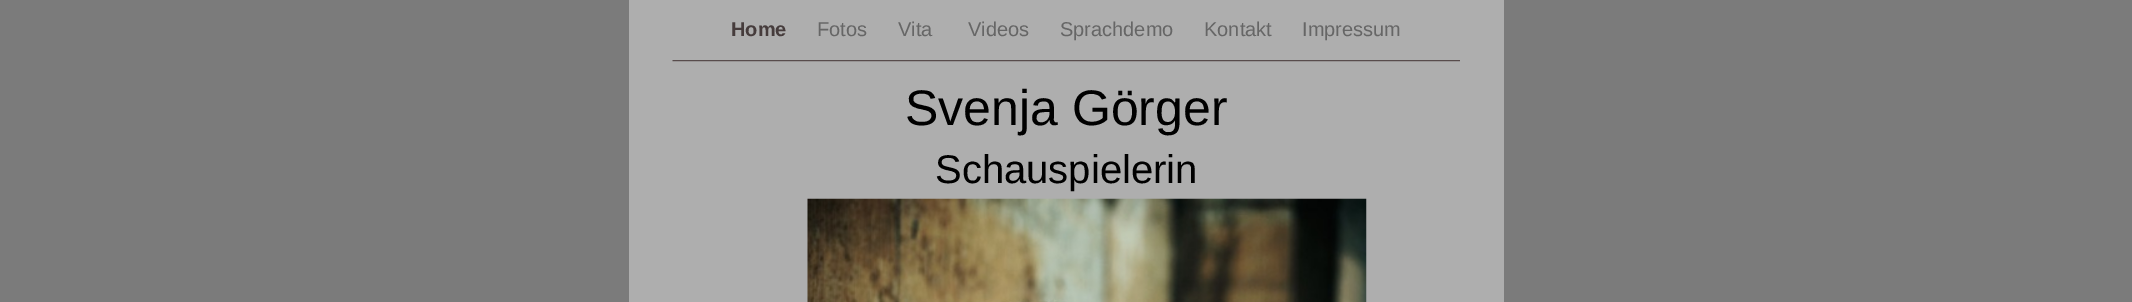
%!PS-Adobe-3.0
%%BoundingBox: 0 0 2132 302
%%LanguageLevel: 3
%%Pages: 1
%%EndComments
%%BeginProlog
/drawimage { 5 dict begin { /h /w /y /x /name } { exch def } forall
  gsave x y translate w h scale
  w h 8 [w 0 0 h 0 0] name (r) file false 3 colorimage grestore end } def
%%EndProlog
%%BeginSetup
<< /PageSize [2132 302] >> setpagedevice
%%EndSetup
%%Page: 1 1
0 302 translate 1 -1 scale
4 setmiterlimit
0.482 setgray
0 0 2132 302 rectfill
0.682 setgray
629 0 875 302 rectfill
(images/1.raw) 672 60 788 2 drawimage
(images/2.raw) 807 198 560 104 drawimage
/LiberationSans-Bold [20 0 0 -20 0 0] selectfont
0.275 0.235 0.235 setrgbcolor
731 36 moveto (Home) show
/LiberationSans-Regular [20 0 0 -20 0 0] selectfont
0.4 setgray
817 36 moveto (Fotos) show
898 36 moveto (Vita) show
968 36 moveto (Videos) show
1060 36 moveto (Sprachdemo) show
1204 36 moveto (Kontakt) show
1302 36 moveto (Impressum) show
/LiberationSans-Regular [50 0 0 -50 0 0] selectfont
0 setgray
905 125 moveto (Svenja Görger) show
/LiberationSans-Regular [40 0 0 -40 0 0] selectfont
935 183 moveto (Schauspielerin) show
showpage
%%EOF
